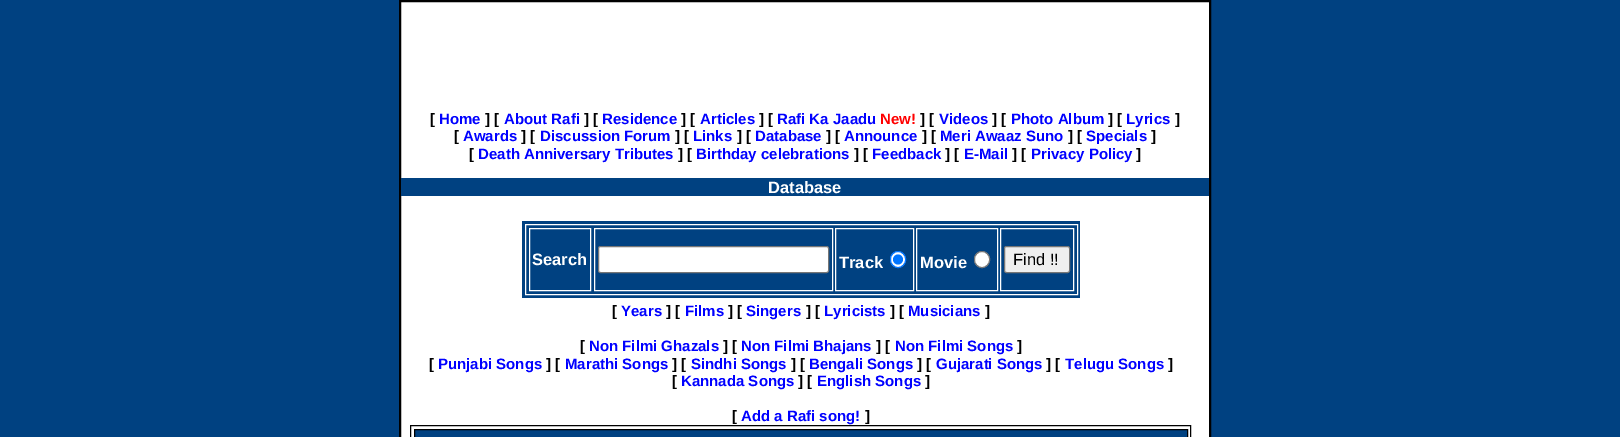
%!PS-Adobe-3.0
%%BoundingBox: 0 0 1620 437
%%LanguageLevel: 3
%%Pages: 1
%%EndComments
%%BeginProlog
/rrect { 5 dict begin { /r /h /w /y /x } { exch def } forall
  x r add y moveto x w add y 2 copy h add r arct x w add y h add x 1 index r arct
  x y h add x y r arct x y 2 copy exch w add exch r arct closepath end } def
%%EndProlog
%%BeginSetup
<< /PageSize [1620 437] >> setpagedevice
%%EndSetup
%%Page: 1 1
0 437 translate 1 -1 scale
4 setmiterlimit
0 0.255 0.506 setrgbcolor
0 0 1620 437 rectfill
1 setgray
401 2 808 435 rectfill
0 setgray
399.5 0.5 811 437 rectstroke
400.5 1.5 809 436 rectstroke
0 0.255 0.506 setrgbcolor
401 178 808 18 rectfill
522 221 558 77 rectfill
1 setgray
525.5 224.5 552 70 rectstroke
529.5 228.5 61 62 rectstroke
594.5 228.5 238 62 rectstroke
598.5 246.5 230 26 2 rrect gsave fill grestore
0.463 setgray
stroke
1 setgray
835.5 228.5 78 62 rectstroke
890.5 251.5 15 16 7.5 rrect gsave fill grestore
0 0.459 1 setrgbcolor
stroke
newpath 898 259.5 5 0 360 arc closepath fill
1 setgray
916.5 228.5 81 62 rectstroke
974.5 251.5 15 16 7.5 rrect gsave fill grestore
0.463 setgray
stroke
1 setgray
1000.5 228.5 73 62 rectstroke
0.937 setgray
1004.5 246.5 65 26 2 rrect gsave fill grestore
0.463 setgray
stroke
0 setgray
410.5 425.5 780 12 rectstroke
0 0.255 0.506 setrgbcolor
newpath 414.5 429.5 moveto 1187.5 429.5 lineto 1187.5 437.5 lineto 414.5 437.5 lineto closepath gsave fill grestore
0 setgray
stroke
/LiberationSans-Bold [15 0 0 -15 0 0] selectfont
430 124 moveto ([) show
0 0 1 setrgbcolor
439 124 moveto (Home) show
0 setgray
485 124 moveto (] [) show
0 0 1 setrgbcolor
504 124 moveto (About Rafi) show
0 setgray
584 124 moveto (] [) show
0 0 1 setrgbcolor
602 124 moveto (Residence) show
0 setgray
681 124 moveto (] [) show
0 0 1 setrgbcolor
700 124 moveto (Articles) show
0 setgray
759 124 moveto (] [) show
0 0 1 setrgbcolor
777 124 moveto (Rafi Ka Jaadu) show
1 0 0 setrgbcolor
880 124 moveto (New!) show
0 setgray
920 124 moveto (] [) show
0 0 1 setrgbcolor
939 124 moveto (Videos) show
0 setgray
992 124 moveto (] [) show
0 0 1 setrgbcolor
1011 124 moveto (Photo Album) show
0 setgray
1108 124 moveto (] [) show
0 0 1 setrgbcolor
1126 124 moveto (Lyrics) show
0 setgray
1175 124 moveto (]) show
454 141 moveto ([) show
0 0 1 setrgbcolor
463 141 moveto (Awards) show
0 setgray
521 141 moveto (] [) show
0 0 1 setrgbcolor
540 141 moveto (Discussion Forum) show
0 setgray
675 141 moveto (] [) show
0 0 1 setrgbcolor
693 141 moveto (Links) show
0 setgray
737 141 moveto (] [) show
0 0 1 setrgbcolor
755 141 moveto (Database) show
0 setgray
826 141 moveto (] [) show
0 0 1 setrgbcolor
844 141 moveto (Announce) show
0 setgray
922 141 moveto (] [) show
0 0 1 setrgbcolor
940 141 moveto (Meri Awaaz Suno) show
0 setgray
1068 141 moveto (] [) show
0 0 1 setrgbcolor
1086 141 moveto (Specials) show
0 setgray
1151 141 moveto (]) show
469 159 moveto ([) show
0 0 1 setrgbcolor
478 159 moveto (Death Anniversary Tributes) show
0 setgray
678 159 moveto (] [) show
0 0 1 setrgbcolor
696 159 moveto (Birthday celebrations) show
0 setgray
854 159 moveto (] [) show
0 0 1 setrgbcolor
872 159 moveto (Feedback) show
0 setgray
945 159 moveto (] [) show
0 0 1 setrgbcolor
964 159 moveto (E-Mail) show
0 setgray
1012 159 moveto (] [) show
0 0 1 setrgbcolor
1031 159 moveto (Privacy Policy) show
0 setgray
1136 159 moveto (]) show
/LiberationSans-Bold [16.5 0 0 -16.5 0 0] selectfont
1 setgray
768 193 moveto (Database) show
532 265 moveto (Search) show
839 268 moveto (Track) show
920 268 moveto (Movie) show
/LiberationSans-Regular [16.5 0 0 -16.5 0 0] selectfont
0 setgray
1013 265 moveto (Find !!) show
/LiberationSans-Bold [15 0 0 -15 0 0] selectfont
612 316 moveto ([) show
0 0 1 setrgbcolor
621 316 moveto (Years) show
0 setgray
666 316 moveto (] [) show
0 0 1 setrgbcolor
685 316 moveto (Films) show
0 setgray
728 316 moveto (] [) show
0 0 1 setrgbcolor
746 316 moveto (Singers) show
0 setgray
806 316 moveto (] [) show
0 0 1 setrgbcolor
824 316 moveto (Lyricists) show
0 setgray
890 316 moveto (] [) show
0 0 1 setrgbcolor
908 316 moveto (Musicians) show
0 setgray
985 316 moveto (]) show
580 351 moveto ([) show
0 0 1 setrgbcolor
589 351 moveto (Non Filmi Ghazals) show
0 setgray
723 351 moveto (] [) show
0 0 1 setrgbcolor
741 351 moveto (Non Filmi Bhajans) show
0 setgray
876 351 moveto (] [) show
0 0 1 setrgbcolor
895 351 moveto (Non Filmi Songs) show
0 setgray
1017 351 moveto (]) show
429 369 moveto ([) show
0 0 1 setrgbcolor
438 369 moveto (Punjabi Songs) show
0 setgray
546 369 moveto (] [) show
0 0 1 setrgbcolor
565 369 moveto (Marathi Songs) show
0 setgray
672 369 moveto (] [) show
0 0 1 setrgbcolor
691 369 moveto (Sindhi Songs) show
0 setgray
791 369 moveto (] [) show
0 0 1 setrgbcolor
809 369 moveto (Bengali Songs) show
0 setgray
917 369 moveto (] [) show
0 0 1 setrgbcolor
936 369 moveto (Gujarati Songs) show
0 setgray
1046 369 moveto (] [) show
0 0 1 setrgbcolor
1065 369 moveto (Telugu Songs) show
0 setgray
1168 369 moveto (]) show
672 386 moveto ([) show
0 0 1 setrgbcolor
681 386 moveto (Kannada Songs) show
0 setgray
798 386 moveto (] [) show
0 0 1 setrgbcolor
817 386 moveto (English Songs) show
0 setgray
925 386 moveto (]) show
732 421 moveto ([) show
0 0 1 setrgbcolor
741 421 moveto (Add a Rafi song!) show
0 setgray
865 421 moveto (]) show
showpage
%%EOF
